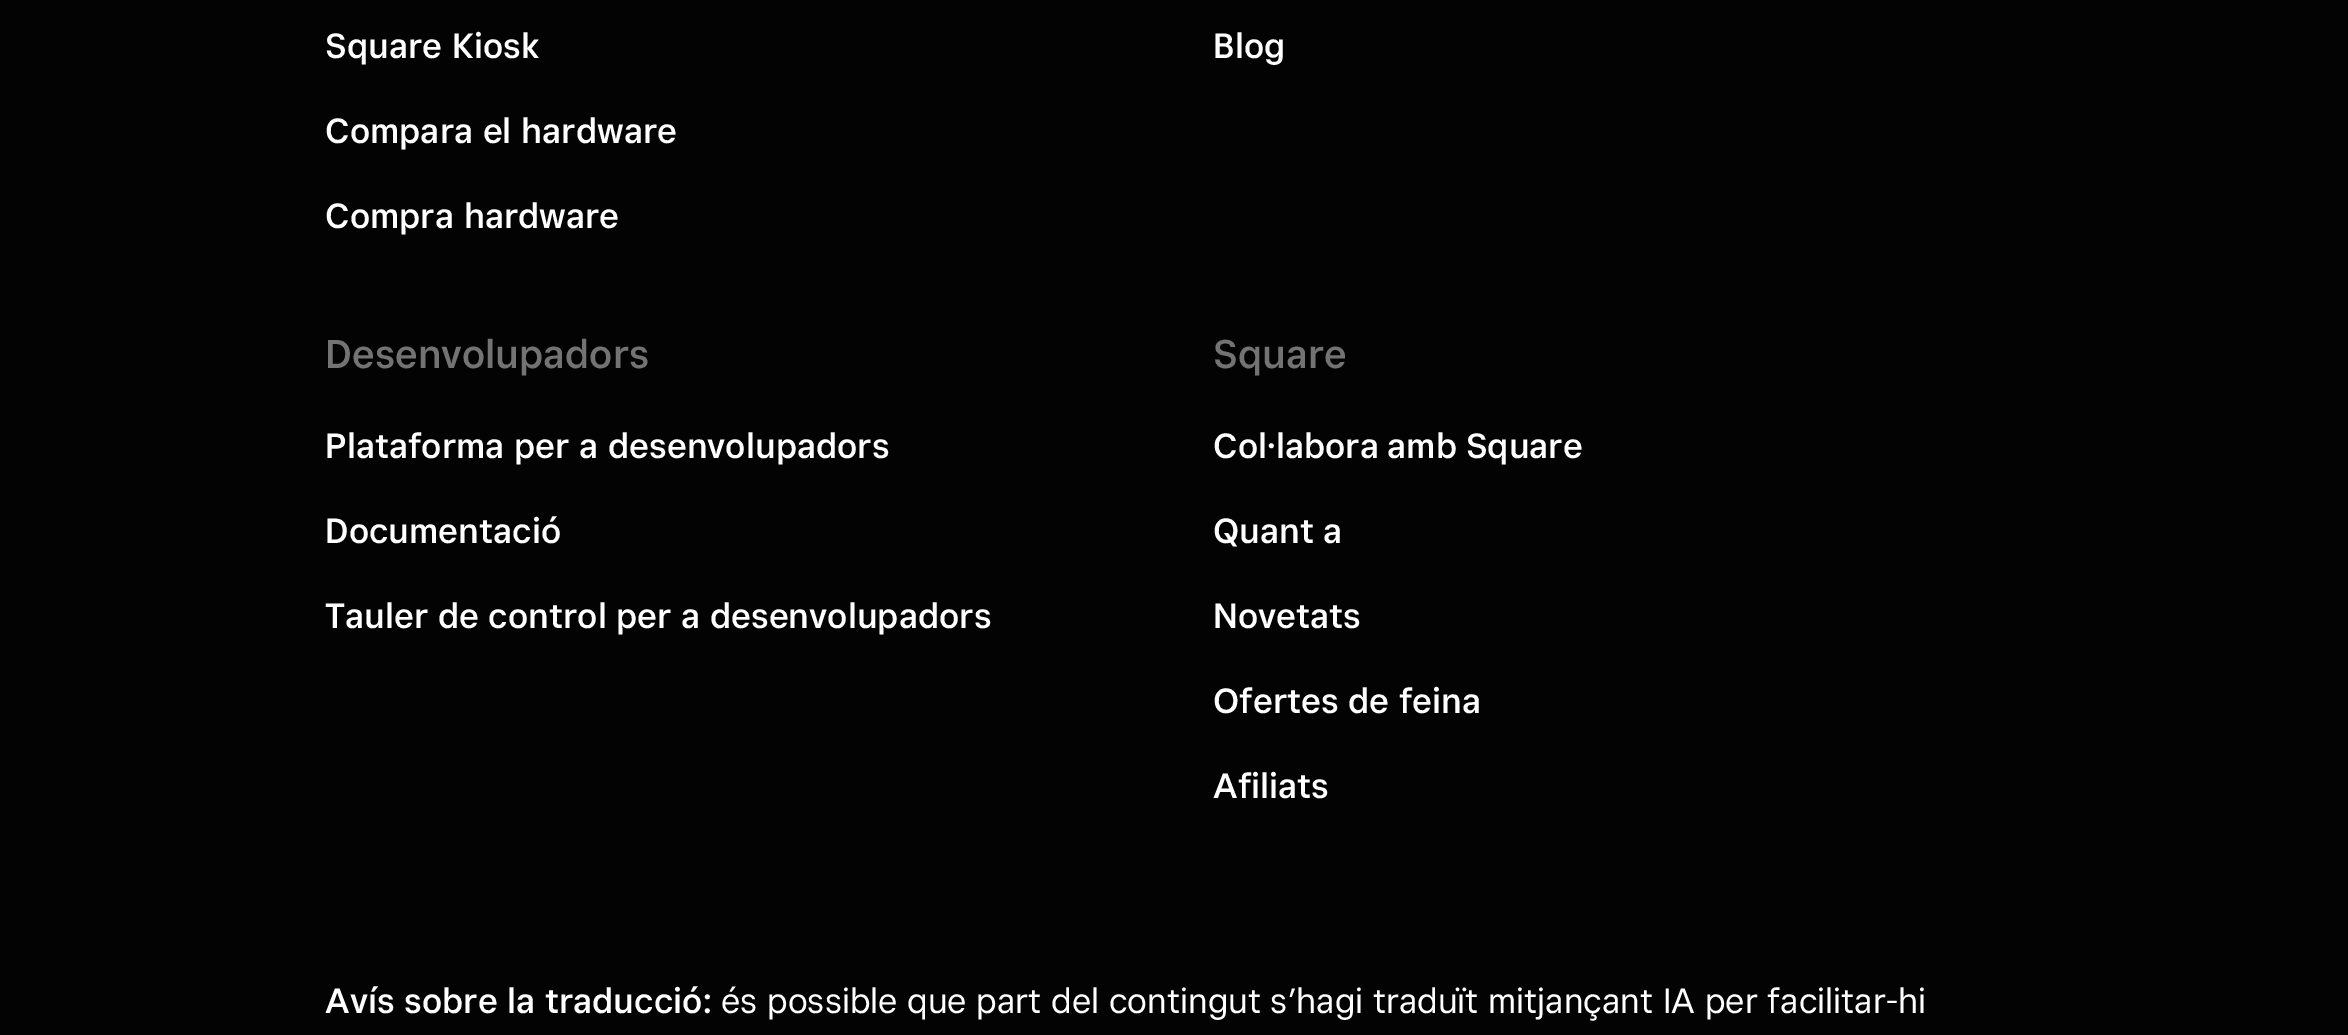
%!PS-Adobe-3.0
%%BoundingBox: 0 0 2348 1035
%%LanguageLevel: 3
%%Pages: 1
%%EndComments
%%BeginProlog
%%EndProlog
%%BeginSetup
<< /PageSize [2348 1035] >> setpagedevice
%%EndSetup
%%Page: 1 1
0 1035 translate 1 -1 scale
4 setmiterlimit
0.012 setgray
0 0 2348 1035 rectfill
/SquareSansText-Medium [35 0 0 -35 0 0] selectfont
1 setgray
325 58 moveto (Square Kiosk) show
325 143 moveto (Compara el hardware) show
325 228 moveto (Compra hardware) show
1213 58 moveto (Blog) show
/SquareSansText-Medium [40 0 0 -40 0 0] selectfont
0.451 setgray
325 368 moveto (Desenvolupadors) show
/SquareSansText-Medium [35 0 0 -35 0 0] selectfont
1 setgray
325 458 moveto (Plataforma per a desenvolupadors) show
325 543 moveto (Documentació) show
325 628 moveto (Tauler de control per a desenvolupadors) show
/SquareSansText-Medium [40 0 0 -40 0 0] selectfont
0.451 setgray
1213 368 moveto (Square) show
/SquareSansText-Medium [35 0 0 -35 0 0] selectfont
1 setgray
1213 458 moveto -1 0 32 (Col·labora amb Square) widthshow
1213 543 moveto (Quant a) show
1213 628 moveto (Novetats) show
1213 713 moveto (Ofertes de feina) show
1213 798 moveto (Afiliats) show
325 1013 moveto (Avís sobre la traducció:) show
/SquareSansText-Regular [35 0 0 -35 0 0] selectfont
721 1013 moveto (és possible que part del contingut s’hagi traduït mitjançant IA per facilitar-hi) show
showpage
%%EOF
